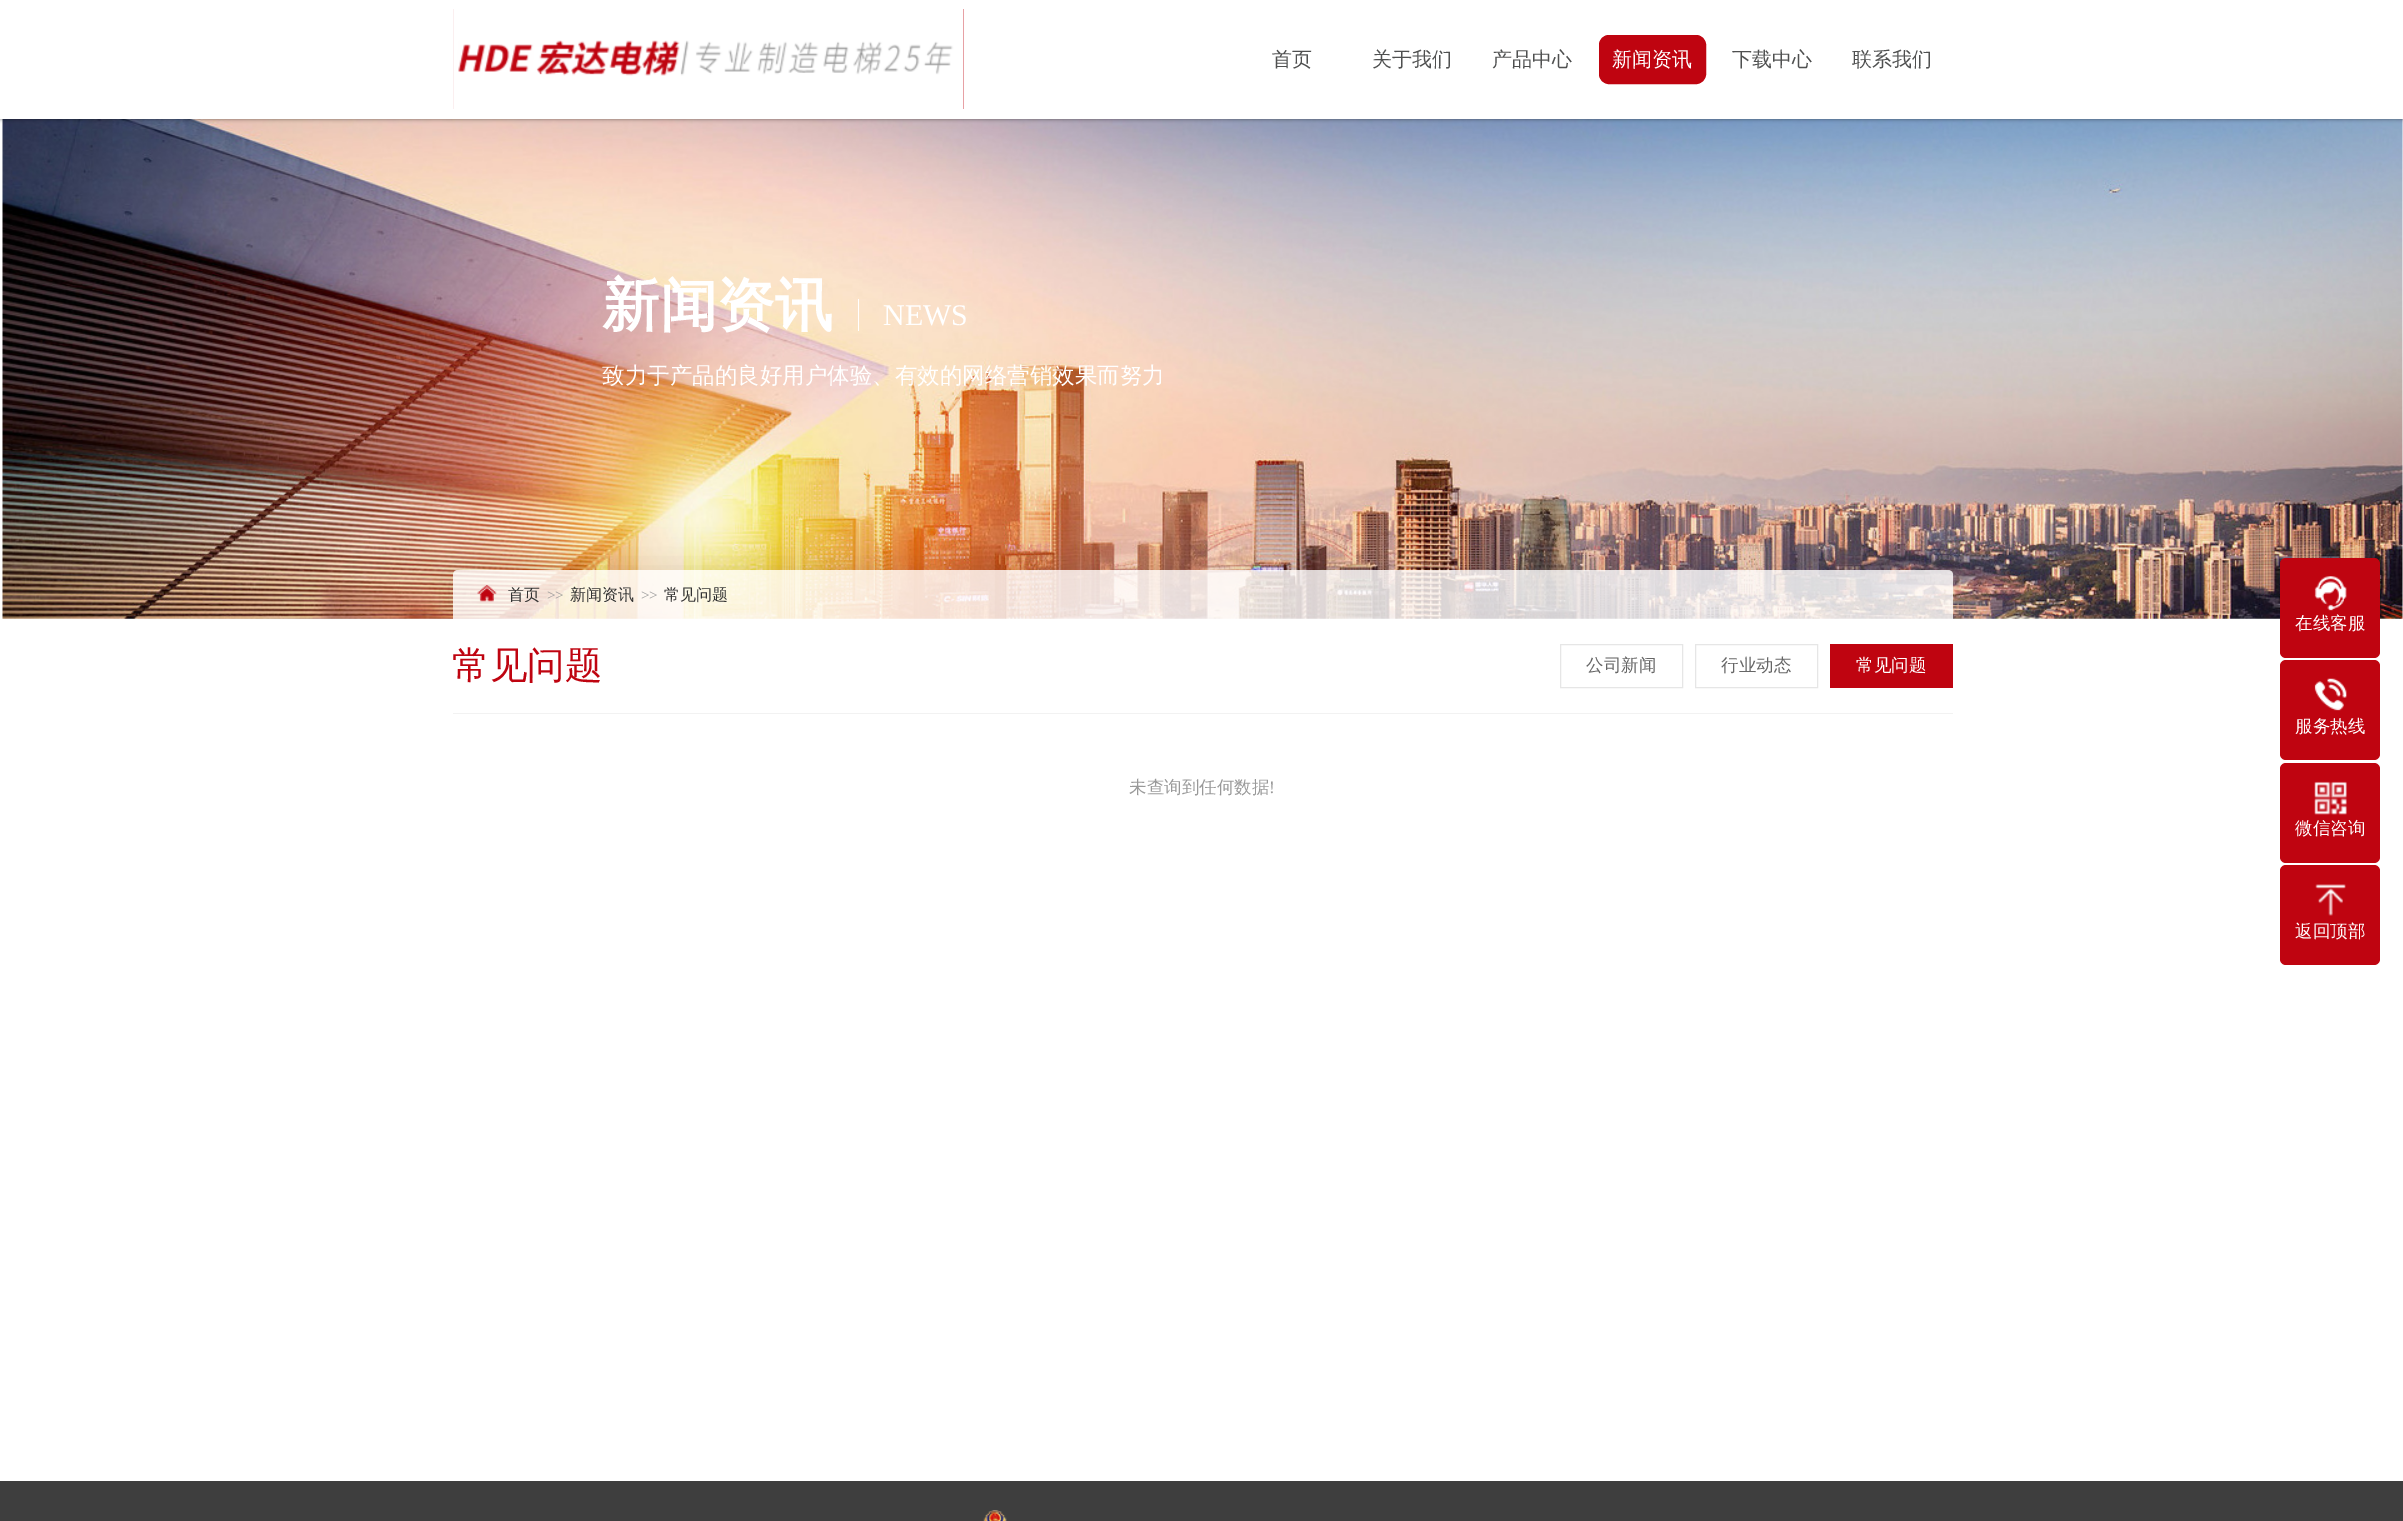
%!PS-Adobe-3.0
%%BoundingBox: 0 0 2403 1521
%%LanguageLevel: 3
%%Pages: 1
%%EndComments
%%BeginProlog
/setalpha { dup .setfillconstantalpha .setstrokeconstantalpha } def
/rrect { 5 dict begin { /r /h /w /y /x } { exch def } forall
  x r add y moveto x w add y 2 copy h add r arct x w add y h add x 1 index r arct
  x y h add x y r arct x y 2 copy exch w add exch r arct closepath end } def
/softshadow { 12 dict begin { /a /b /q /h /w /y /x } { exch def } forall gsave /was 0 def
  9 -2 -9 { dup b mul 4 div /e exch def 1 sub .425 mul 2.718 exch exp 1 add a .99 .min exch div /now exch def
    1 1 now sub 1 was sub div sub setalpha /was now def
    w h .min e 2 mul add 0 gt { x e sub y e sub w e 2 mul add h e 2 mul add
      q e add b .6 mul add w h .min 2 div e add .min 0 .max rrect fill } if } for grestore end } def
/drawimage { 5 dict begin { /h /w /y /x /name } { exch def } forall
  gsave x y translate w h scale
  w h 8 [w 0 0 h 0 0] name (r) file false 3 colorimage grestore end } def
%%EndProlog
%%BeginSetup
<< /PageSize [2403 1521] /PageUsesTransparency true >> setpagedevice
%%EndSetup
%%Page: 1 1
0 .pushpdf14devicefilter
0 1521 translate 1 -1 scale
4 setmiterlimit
1 setgray
0 0 2403 1521 rectfill
(images/2.raw) 2 119 2401 500 drawimage
0 setgray
0 0 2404 119 0 2 0.5 softshadow
1 setgray
0 0 2403 119 rectfill
0.749 0.016 0.063 setrgbcolor
453 9 511 100 rectfill
(images/1.raw) 453 9 511 100 drawimage
1599.5 35.5 106 48 9.5 rrect gsave fill grestore
stroke
1 setgray
858 299 1 32 rectfill
gsave
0 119 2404 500 rectclip
newpath 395 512 moveto 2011 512 lineto 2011 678 lineto 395 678 lineto closepath 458 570 moveto 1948 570 lineto 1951 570 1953 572 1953 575 curveto 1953 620 lineto 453 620 lineto 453 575 lineto 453 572 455 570 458 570 curveto closepath eoclip newpath
0 setgray
453 570 1500 50 5 19 0.1 softshadow
grestore
0.8 setalpha
newpath 458 570 moveto 1948 570 lineto 1951 570 1953 572 1953 575 curveto 1953 619 lineto 453 619 lineto 453 575 lineto 453 572 455 570 458 570 curveto closepath fill
1 setalpha
(images/3.raw) 477 585 20 17 drawimage
0.949 setgray
453 713 1500 1 rectfill
0.902 setgray
1560.5 644.5 122 43 rectstroke
1695.5 644.5 122 43 rectstroke
0.749 0.016 0.063 setrgbcolor
1830 644 123 44 rectfill
2280 558 100 100 6 rrect fill
(images/4.raw) 2314 576 33 35 drawimage
2280 660 100 100 6 rrect fill
(images/5.raw) 2314 678 33 33 drawimage
2280 763 100 100 6 rrect fill
(images/6.raw) 2314 781 33 34 drawimage
2280 865 100 100 6 rrect fill
(images/7.raw) 2315 884 31 32 drawimage
0.243 setgray
0 1481 2403 40 rectfill
(images/8.raw) 983 1510 24 11 drawimage
/WenQuanYiZenHei-Medium [20 0 0 -20 0 0] selectfont
0.31 0.314 0.314 setrgbcolor
1272 66 moveto (首页) show
1372 66 moveto (关于我们) show
1492 66 moveto (产品中心) show
1 setgray
1612 66 moveto (新闻资讯) show
0.31 0.314 0.314 setrgbcolor
1732 66 moveto (下载中心) show
1852 66 moveto (联系我们) show
/WenQuanYiZenHei-Bold [57.5 0 0 -57.5 0 0] selectfont
1 setgray
602 325 moveto (新闻资讯) show
/LiberationSerif-Regular [30 0 0 -30 0 0] selectfont
883 325 moveto (NEWS) show
/WenQuanYiZenHei-Medium [22.5 0 0 -22.5 0 0] selectfont
602 383 moveto (致力于产品的良好用户体验、有效的网络营销效果而努力) show
/WenQuanYiZenHei-Medium [16 0 0 -16 0 0] selectfont
0.2 setgray
508 600 moveto (首页) show
/LiberationSerif-Regular [15 0 0 -15 0 0] selectfont
0.6 setgray
547 600 moveto (>>) show
/WenQuanYiZenHei-Medium [16 0 0 -16 0 0] selectfont
0.2 setgray
570 600 moveto (新闻资讯) show
/LiberationSerif-Regular [15 0 0 -15 0 0] selectfont
0.6 setgray
641 600 moveto (>>) show
/WenQuanYiZenHei-Medium [16 0 0 -16 0 0] selectfont
0.2 setgray
664 600 moveto (常见问题) show
/WenQuanYiZenHei-Medium [37.5 0 0 -37.5 0 0] selectfont
0.749 0.016 0.063 setrgbcolor
452 678 moveto (常见问题) show
/WenQuanYiZenHei-Medium [17.5 0 0 -17.5 0 0] selectfont
0.4 setgray
1586 671 moveto (公司新闻) show
1721 671 moveto (行业动态) show
1 setgray
1856 671 moveto (常见问题) show
0.6 setgray
1129 793 moveto (未查询到任何数据) show
/LiberationSerif-Regular [17.5 0 0 -17.5 0 0] selectfont
1269 793 moveto (!) show
/WenQuanYiZenHei-Medium [17.5 0 0 -17.5 0 0] selectfont
1 setgray
2295 629 moveto (在线客服) show
2295 732 moveto (服务热线) show
2295 834 moveto (微信咨询) show
2295 937 moveto (返回顶部) show
.poppdf14devicefilter showpage
%%EOF
